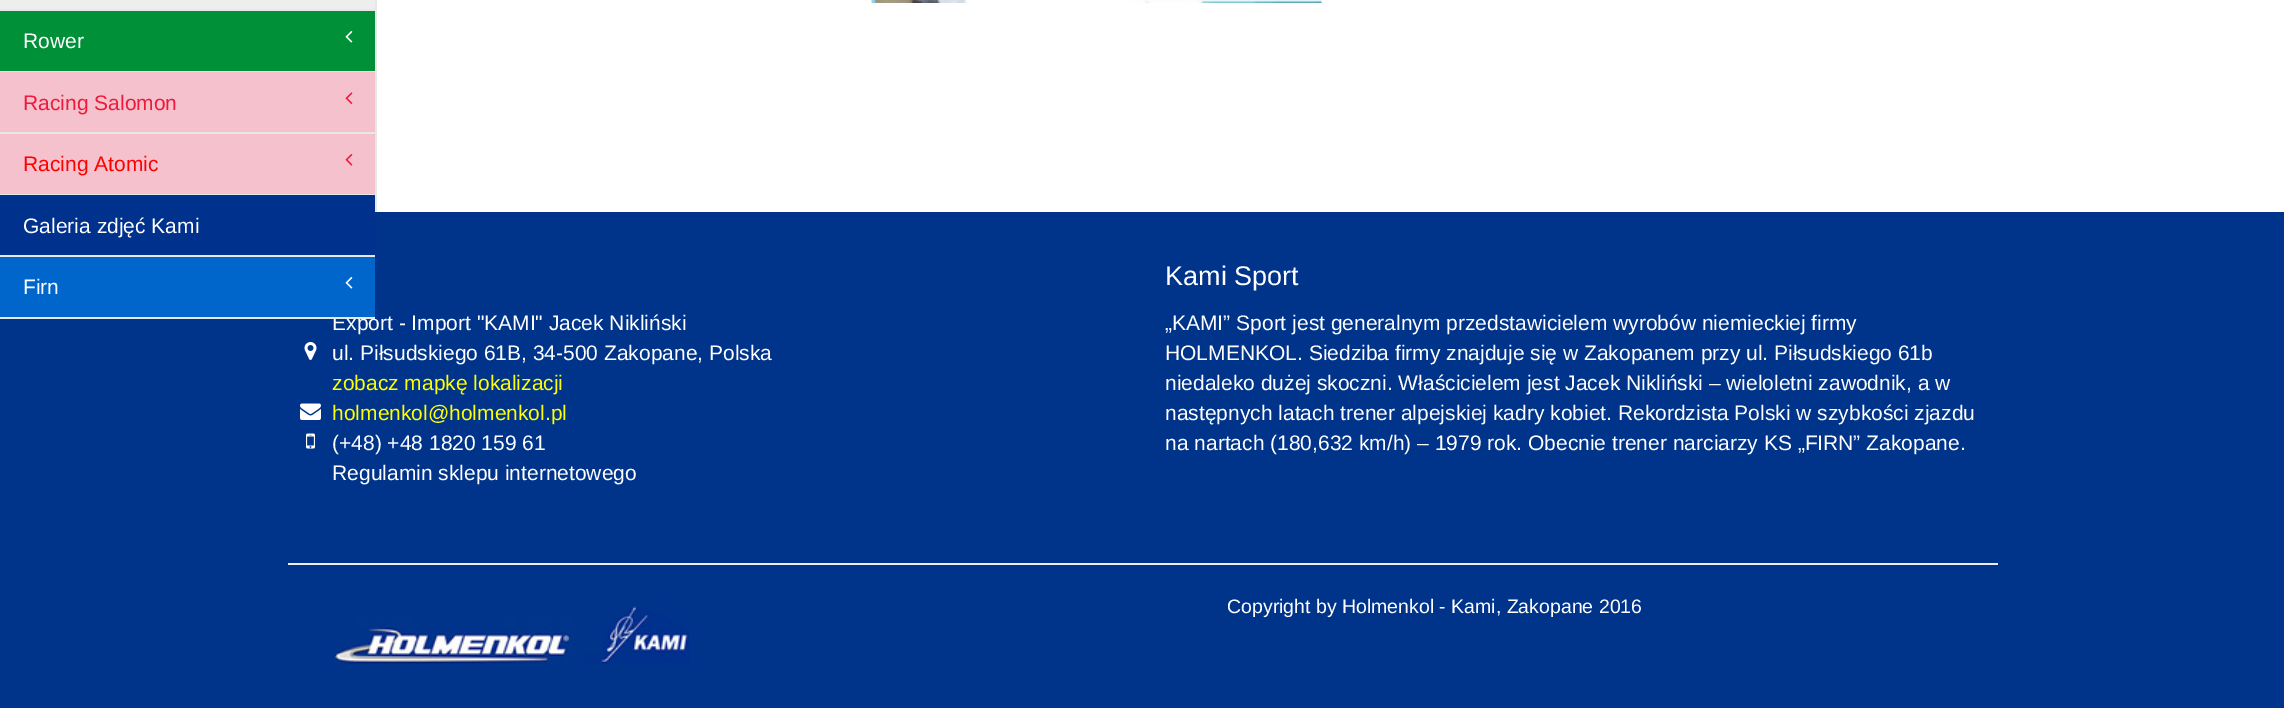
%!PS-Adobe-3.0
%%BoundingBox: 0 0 2284 708
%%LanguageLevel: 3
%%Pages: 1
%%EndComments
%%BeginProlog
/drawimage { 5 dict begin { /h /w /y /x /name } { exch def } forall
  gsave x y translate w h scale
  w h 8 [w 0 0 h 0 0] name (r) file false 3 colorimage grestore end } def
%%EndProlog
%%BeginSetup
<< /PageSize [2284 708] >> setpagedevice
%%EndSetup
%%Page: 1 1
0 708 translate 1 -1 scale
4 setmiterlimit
1 setgray
0 0 2284 708 rectfill
0.906 setgray
0 9 375 2 rectfill
0.933 setgray
0 0 375 9 rectfill
0.906 setgray
0 71 375 1 rectfill
0 0.565 0.22 setrgbcolor
0 11 375 60 rectfill
(images/1.raw) 345 31 8 12 drawimage
0.906 setgray
0 132 375 2 rectfill
0.961 0.757 0.804 setrgbcolor
0 72 375 60 rectfill
(images/2.raw) 345 92 8 12 drawimage
0.906 setgray
0 194 375 1 rectfill
0.961 0.757 0.804 setrgbcolor
0 134 375 60 rectfill
(images/3.raw) 345 154 8 12 drawimage
0 0.204 0.541 setrgbcolor
0 212 2284 496 rectfill
0.906 setgray
0 255 375 2 rectfill
0 0.192 0.553 setrgbcolor
0 195 375 60 rectfill
0.906 setgray
375 0 2 212 rectfill
(images/5.raw) 871 0 451 3 drawimage
(images/6.raw) 304 342 13 18 drawimage
(images/7.raw) 300 403 21 17 drawimage
(images/8.raw) 306 433 9 16 drawimage
0.933 setgray
288 563 1710 2 rectfill
(images/9.raw) 333 605 357 59 drawimage
/LiberationSans-Regular [21 0 0 -21 0 0] selectfont
1 setgray
23 48 moveto (Rower) show
0.929 0.102 0.231 setrgbcolor
23 110 moveto (Racing Salomon) show
1 0 0 setrgbcolor
23 171 moveto (Racing Atomic) show
1 setgray
23 233 moveto (Galeria zdjęć Kami) show
332 330 moveto (Export - Import "KAMI" Jacek Nikliński) show
0 0.4 0.796 setrgbcolor
0 257 375 60 rectfill
1 setgray
23 294 moveto (Firn) show
(images/4.raw) 345 277 8 12 drawimage
0.906 setgray
0 317 375 2 rectfill
1 setgray
332 360 moveto (ul. Piłsudskiego 61B, 34-500 Zakopane, Polska) show
1 1 0 setrgbcolor
332 390 moveto (zobacz mapkę lokalizacji) show
332 420 moveto (holmenkol@holmenkol.pl) show
1 setgray
332 450 moveto (\(+48\) +48 1820 159 61) show
332 480 moveto (Regulamin sklepu internetowego) show
/LiberationSans-Regular [27 0 0 -27 0 0] selectfont
1165 285 moveto (Kami Sport) show
/LiberationSans-Regular [21 0 0 -21 0 0] selectfont
1165 330 moveto („KAMI” Sport jest generalnym przedstawicielem wyrobów niemieckiej firmy) show
1165 360 moveto (HOLMENKOL. Siedziba firmy znajduje się w Zakopanem przy ul. Piłsudskiego 61b) show
1165 390 moveto (niedaleko dużej skoczni. Właścicielem jest Jacek Nikliński – wieloletni zawodnik, a w) show
1165 420 moveto (następnych latach trener alpejskiej kadry kobiet. Rekordzista Polski w szybkości zjazdu) show
1165 450 moveto (na nartach \(180,632 km/h\) – 1979 rok. Obecnie trener narciarzy KS „FIRN” Zakopane.) show
/LiberationSans-Regular [19.5 0 0 -19.5 0 0] selectfont
1227 613 moveto (Copyright by Holmenkol - Kami, Zakopane 2016) show
showpage
%%EOF
